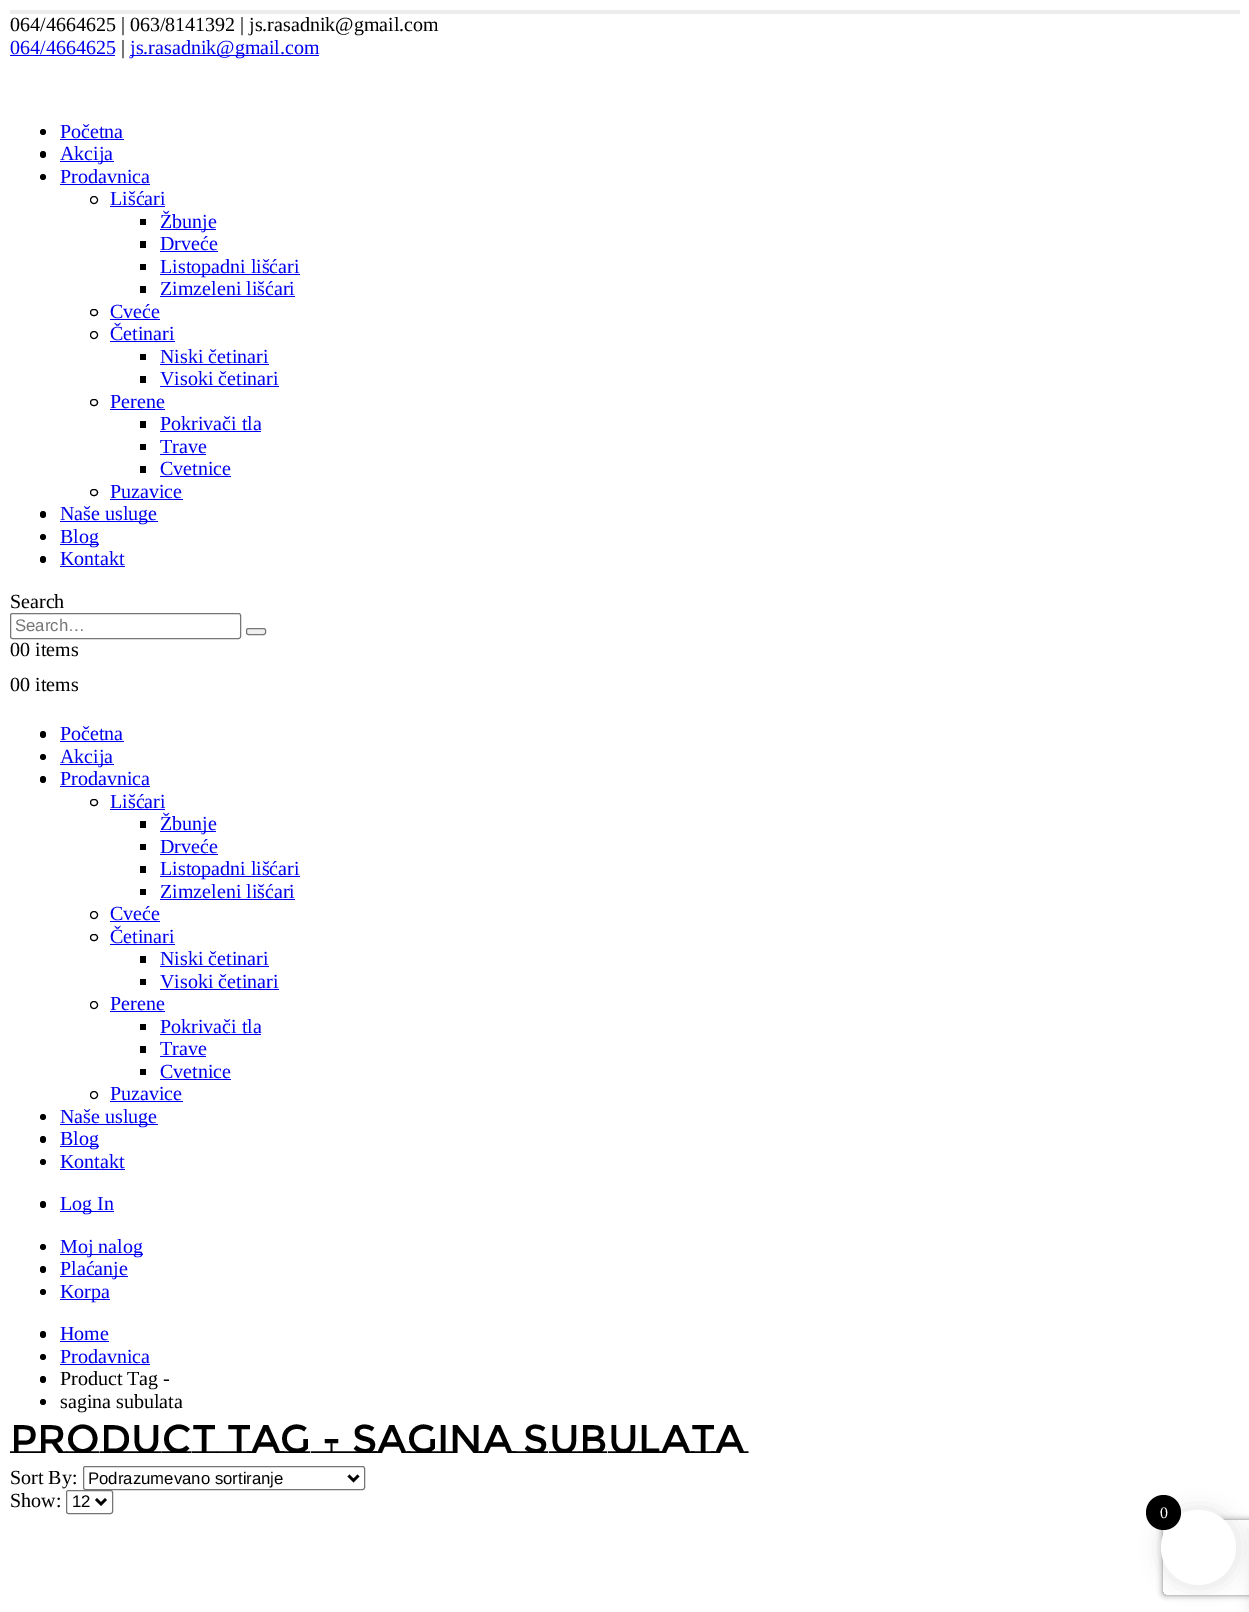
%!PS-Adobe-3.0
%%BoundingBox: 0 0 1249 1612
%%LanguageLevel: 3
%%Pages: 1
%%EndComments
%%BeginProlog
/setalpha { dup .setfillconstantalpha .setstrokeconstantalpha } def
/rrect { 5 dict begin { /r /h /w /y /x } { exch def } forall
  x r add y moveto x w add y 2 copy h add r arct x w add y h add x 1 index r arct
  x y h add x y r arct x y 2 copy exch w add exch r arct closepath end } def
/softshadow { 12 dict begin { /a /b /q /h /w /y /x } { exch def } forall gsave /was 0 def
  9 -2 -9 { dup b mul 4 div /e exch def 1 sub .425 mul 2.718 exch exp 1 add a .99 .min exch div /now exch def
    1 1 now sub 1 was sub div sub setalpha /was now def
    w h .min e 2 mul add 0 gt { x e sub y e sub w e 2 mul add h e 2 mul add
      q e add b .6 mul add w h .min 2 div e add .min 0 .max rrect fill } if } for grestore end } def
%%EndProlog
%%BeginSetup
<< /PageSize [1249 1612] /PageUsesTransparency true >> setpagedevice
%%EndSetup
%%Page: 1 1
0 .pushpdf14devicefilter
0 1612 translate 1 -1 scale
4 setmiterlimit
1 setgray
0 0 1249 1612 rectfill
0.929 setgray
10 10 1230 4 rectfill
0 0 0.933 setrgbcolor
10 55 105 1 rectfill
130 55 189 1 rectfill
0 setgray
newpath 43 132 3 0 360 arc closepath fill
0 0 0.933 setrgbcolor
60 139 64 1 rectfill
0 setgray
40 151 6 7 3 rrect fill
0 0 0.933 setrgbcolor
60 161 54 1 rectfill
0 setgray
newpath 43 177 3 0 360 arc closepath fill
0 0 0.933 setrgbcolor
60 184 90 1 rectfill
0 setgray
newpath 94 200 3.5 0 360 arc closepath stroke
0 0 0.933 setrgbcolor
110 206 55 1 rectfill
0 setgray
140 219 6 6 rectfill
0 0 0.933 setrgbcolor
160 229 56 1 rectfill
0 setgray
140 241 6 7 rectfill
0 0 0.933 setrgbcolor
160 251 58 1 rectfill
0 setgray
140 264 6 6 rectfill
0 0 0.933 setrgbcolor
160 274 140 1 rectfill
0 setgray
140 286 6 7 rectfill
0 0 0.933 setrgbcolor
160 296 135 1 rectfill
0 setgray
90.5 309.5 7 6 3 rrect stroke
0 0 0.933 setrgbcolor
110 319 50 1 rectfill
0 setgray
newpath 94 335 3.5 0 360 arc closepath stroke
0 0 0.933 setrgbcolor
110 341 65 1 rectfill
0 setgray
140 354 6 6 rectfill
0 0 0.933 setrgbcolor
160 364 109 1 rectfill
0 setgray
140 376 6 7 rectfill
0 0 0.933 setrgbcolor
160 386 119 1 rectfill
0 setgray
90.5 399.5 7 6 3 rrect stroke
0 0 0.933 setrgbcolor
110 409 55 1 rectfill
0 setgray
140 421 6 7 rectfill
0 0 0.933 setrgbcolor
160 431 101 1 rectfill
0 setgray
140 444 6 6 rectfill
0 0 0.933 setrgbcolor
160 454 46 1 rectfill
0 setgray
140 466 6 7 rectfill
0 0 0.933 setrgbcolor
160 476 71 1 rectfill
0 setgray
90.5 489.5 7 6 3 rrect stroke
0 0 0.933 setrgbcolor
110 499 73 1 rectfill
0 setgray
40 511 6 7 3 rrect fill
0 0 0.933 setrgbcolor
60 521 98 1 rectfill
0 setgray
newpath 43 537 3 0 360 arc closepath fill
0 0 0.933 setrgbcolor
60 544 39 1 rectfill
0 setgray
40 556 6 7 3 rrect fill
0 0 0.933 setrgbcolor
60 566 65 1 rectfill
0.463 setgray
10.5 613.5 230 25 2 rrect stroke
0.937 setgray
246.5 628.5 19 6 2 rrect gsave fill grestore
0.463 setgray
stroke
0 setgray
40 731 6 7 3 rrect fill
0 0 0.933 setrgbcolor
60 741 64 1 rectfill
0 setgray
newpath 43 757 3 0 360 arc closepath fill
0 0 0.933 setrgbcolor
60 764 54 1 rectfill
0 setgray
40 776 6 7 3 rrect fill
0 0 0.933 setrgbcolor
60 786 90 1 rectfill
0 setgray
90.5 799.5 7 6 3 rrect stroke
0 0 0.933 setrgbcolor
110 809 55 1 rectfill
0 setgray
140 821 6 7 rectfill
0 0 0.933 setrgbcolor
160 831 56 1 rectfill
0 setgray
140 844 6 6 rectfill
0 0 0.933 setrgbcolor
160 854 58 1 rectfill
0 setgray
140 866 6 7 rectfill
0 0 0.933 setrgbcolor
160 876 140 1 rectfill
0 setgray
140 889 6 6 rectfill
0 0 0.933 setrgbcolor
160 899 135 1 rectfill
0 setgray
newpath 94 915 3.5 0 360 arc closepath stroke
0 0 0.933 setrgbcolor
110 921 50 1 rectfill
0 setgray
90.5 934.5 7 6 3 rrect stroke
0 0 0.933 setrgbcolor
110 944 65 1 rectfill
0 setgray
140 956 6 7 rectfill
0 0 0.933 setrgbcolor
160 966 109 1 rectfill
0 setgray
140 979 6 6 rectfill
0 0 0.933 setrgbcolor
160 989 119 1 rectfill
0 setgray
newpath 94 1005 3.5 0 360 arc closepath stroke
0 0 0.933 setrgbcolor
110 1011 55 1 rectfill
0 setgray
140 1024 6 6 rectfill
0 0 0.933 setrgbcolor
160 1034 101 1 rectfill
0 setgray
140 1046 6 7 rectfill
0 0 0.933 setrgbcolor
160 1056 46 1 rectfill
0 setgray
140 1069 6 6 rectfill
0 0 0.933 setrgbcolor
160 1079 71 1 rectfill
0 setgray
newpath 94 1095 3.5 0 360 arc closepath stroke
0 0 0.933 setrgbcolor
110 1101 73 1 rectfill
0 setgray
newpath 43 1117 3 0 360 arc closepath fill
0 0 0.933 setrgbcolor
60 1124 98 1 rectfill
0 setgray
40 1136 6 7 3 rrect fill
0 0 0.933 setrgbcolor
60 1146 39 1 rectfill
0 setgray
newpath 43 1162 3 0 360 arc closepath fill
0 0 0.933 setrgbcolor
60 1169 65 1 rectfill
0 setgray
40 1201 6 7 3 rrect fill
0 0 0.933 setrgbcolor
60 1211 54 1 rectfill
0 setgray
newpath 43 1247 3 0 360 arc closepath fill
0 0 0.933 setrgbcolor
60 1254 83 1 rectfill
0 setgray
40 1266 6 7 3 rrect fill
0 0 0.933 setrgbcolor
60 1276 68 1 rectfill
0 setgray
newpath 43 1292 3 0 360 arc closepath fill
0 0 0.933 setrgbcolor
60 1299 50 1 rectfill
0 setgray
40 1331 6 7 3 rrect fill
0 0 0.933 setrgbcolor
60 1341 49 1 rectfill
0 setgray
newpath 43 1357 3 0 360 arc closepath fill
0 0 0.933 setrgbcolor
60 1364 90 1 rectfill
0 setgray
40 1376 6 7 3 rrect fill
newpath 43 1402 3 0 360 arc closepath fill
0.463 setgray
83.5 1466.5 281 23 2 rrect stroke
0 setgray
2.5 setlinewidth
newpath 348.5 1475.5 moveto 353.5 1480.5 lineto 358.5 1475.5 lineto stroke
0.463 setgray
1 setlinewidth
66.5 1490.5 46 23 2 rrect stroke
0 setgray
2.5 setlinewidth
newpath 96 1499 moveto 101 1504 lineto 106 1499 lineto stroke
1159 1508 80 80 40 9.5 0.1 softshadow
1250 1530 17 81 0 6 0.1 softshadow
gsave
newpath 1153 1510 moveto 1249 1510 lineto 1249 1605 lineto 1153 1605 lineto closepath 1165.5 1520 moveto 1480.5 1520 lineto 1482 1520 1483 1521 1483 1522.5 curveto 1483 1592.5 lineto 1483 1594 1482 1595 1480.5 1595 curveto 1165.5 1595 lineto 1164 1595 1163 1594 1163 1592.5 curveto 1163 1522.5 lineto 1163 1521 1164 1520 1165.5 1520 curveto closepath eoclip newpath
0.502 setgray
1163 1520 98 75 2.5 3 1 softshadow
grestore
1 setgray
newpath 1198.5 1547.5 37.5 0 360 arc closepath fill
0 setgray
newpath 1163.5 1512.5 17.5 0 360 arc closepath fill
/LiberationSerif-Regular [20 0 0 -20 0 0] selectfont
10 31 moveto (064/4664625 | 063/8141392 | js.rasadnik@gmail.com) show
0 0 0.933 setrgbcolor
10 54 moveto (064/4664625) show
0 setgray
121 54 moveto (|) show
0 0 0.933 setrgbcolor
130 54 moveto (js.rasadnik@gmail.com) show
60 138 moveto (Početna) show
60 160 moveto (Akcija) show
60 183 moveto (Prodavnica) show
110 205 moveto (Lišćari) show
160 228 moveto (Žbunje) show
160 250 moveto (Drveće) show
160 273 moveto (Listopadni lišćari) show
160 295 moveto (Zimzeleni lišćari) show
110 318 moveto (Cveće) show
110 340 moveto (Četinari) show
160 363 moveto (Niski četinari) show
160 385 moveto (Visoki četinari) show
110 408 moveto (Perene) show
160 430 moveto (Pokrivači tla) show
160 453 moveto (Trave) show
160 475 moveto (Cvetnice) show
110 498 moveto (Puzavice) show
60 520 moveto (Naše usluge) show
60 543 moveto (Blog) show
60 565 moveto (Kontakt) show
0 setgray
10 608 moveto (Search) show
/LiberationSans-Regular [16.75 0 0 -16.75 0 0] selectfont
0.459 setgray
15 631 moveto (Search…) show
/LiberationSerif-Regular [20 0 0 -20 0 0] selectfont
0 setgray
10 656 moveto (00 items) show
10 691 moveto (00 items) show
0 0 0.933 setrgbcolor
60 740 moveto (Početna) show
60 763 moveto (Akcija) show
60 785 moveto (Prodavnica) show
110 808 moveto (Lišćari) show
160 830 moveto (Žbunje) show
160 853 moveto (Drveće) show
160 875 moveto (Listopadni lišćari) show
160 898 moveto (Zimzeleni lišćari) show
110 920 moveto (Cveće) show
110 943 moveto (Četinari) show
160 965 moveto (Niski četinari) show
160 988 moveto (Visoki četinari) show
110 1010 moveto (Perene) show
160 1033 moveto (Pokrivači tla) show
160 1055 moveto (Trave) show
160 1078 moveto (Cvetnice) show
110 1100 moveto (Puzavice) show
60 1123 moveto (Naše usluge) show
60 1145 moveto (Blog) show
60 1168 moveto (Kontakt) show
60 1210 moveto (Log In) show
60 1253 moveto (Moj nalog) show
60 1275 moveto (Plaćanje) show
60 1298 moveto (Korpa) show
60 1340 moveto (Home) show
60 1363 moveto (Prodavnica) show
0 setgray
60 1385 moveto (Product Tag -) show
60 1408 moveto (sagina subulata) show
/MontserratSubrayada-Regular [40 0 0 -40 0 0] selectfont
10 1453 moveto (Product Tag - sagina subulata) show
/LiberationSerif-Regular [20 0 0 -20 0 0] selectfont
10 1484 moveto (Sort By:) show
/LiberationSans-Regular [16.75 0 0 -16.75 0 0] selectfont
88 1484 moveto (Podrazumevano sortiranje) show
/LiberationSerif-Regular [20 0 0 -20 0 0] selectfont
10 1507 moveto (Show:) show
/LiberationSans-Regular [16.75 0 0 -16.75 0 0] selectfont
72 1507 moveto (12) show
/LiberationSerif-Regular [16 0 0 -16 0 0] selectfont
1 setgray
1160 1518 moveto (0) show
.poppdf14devicefilter showpage
%%EOF
